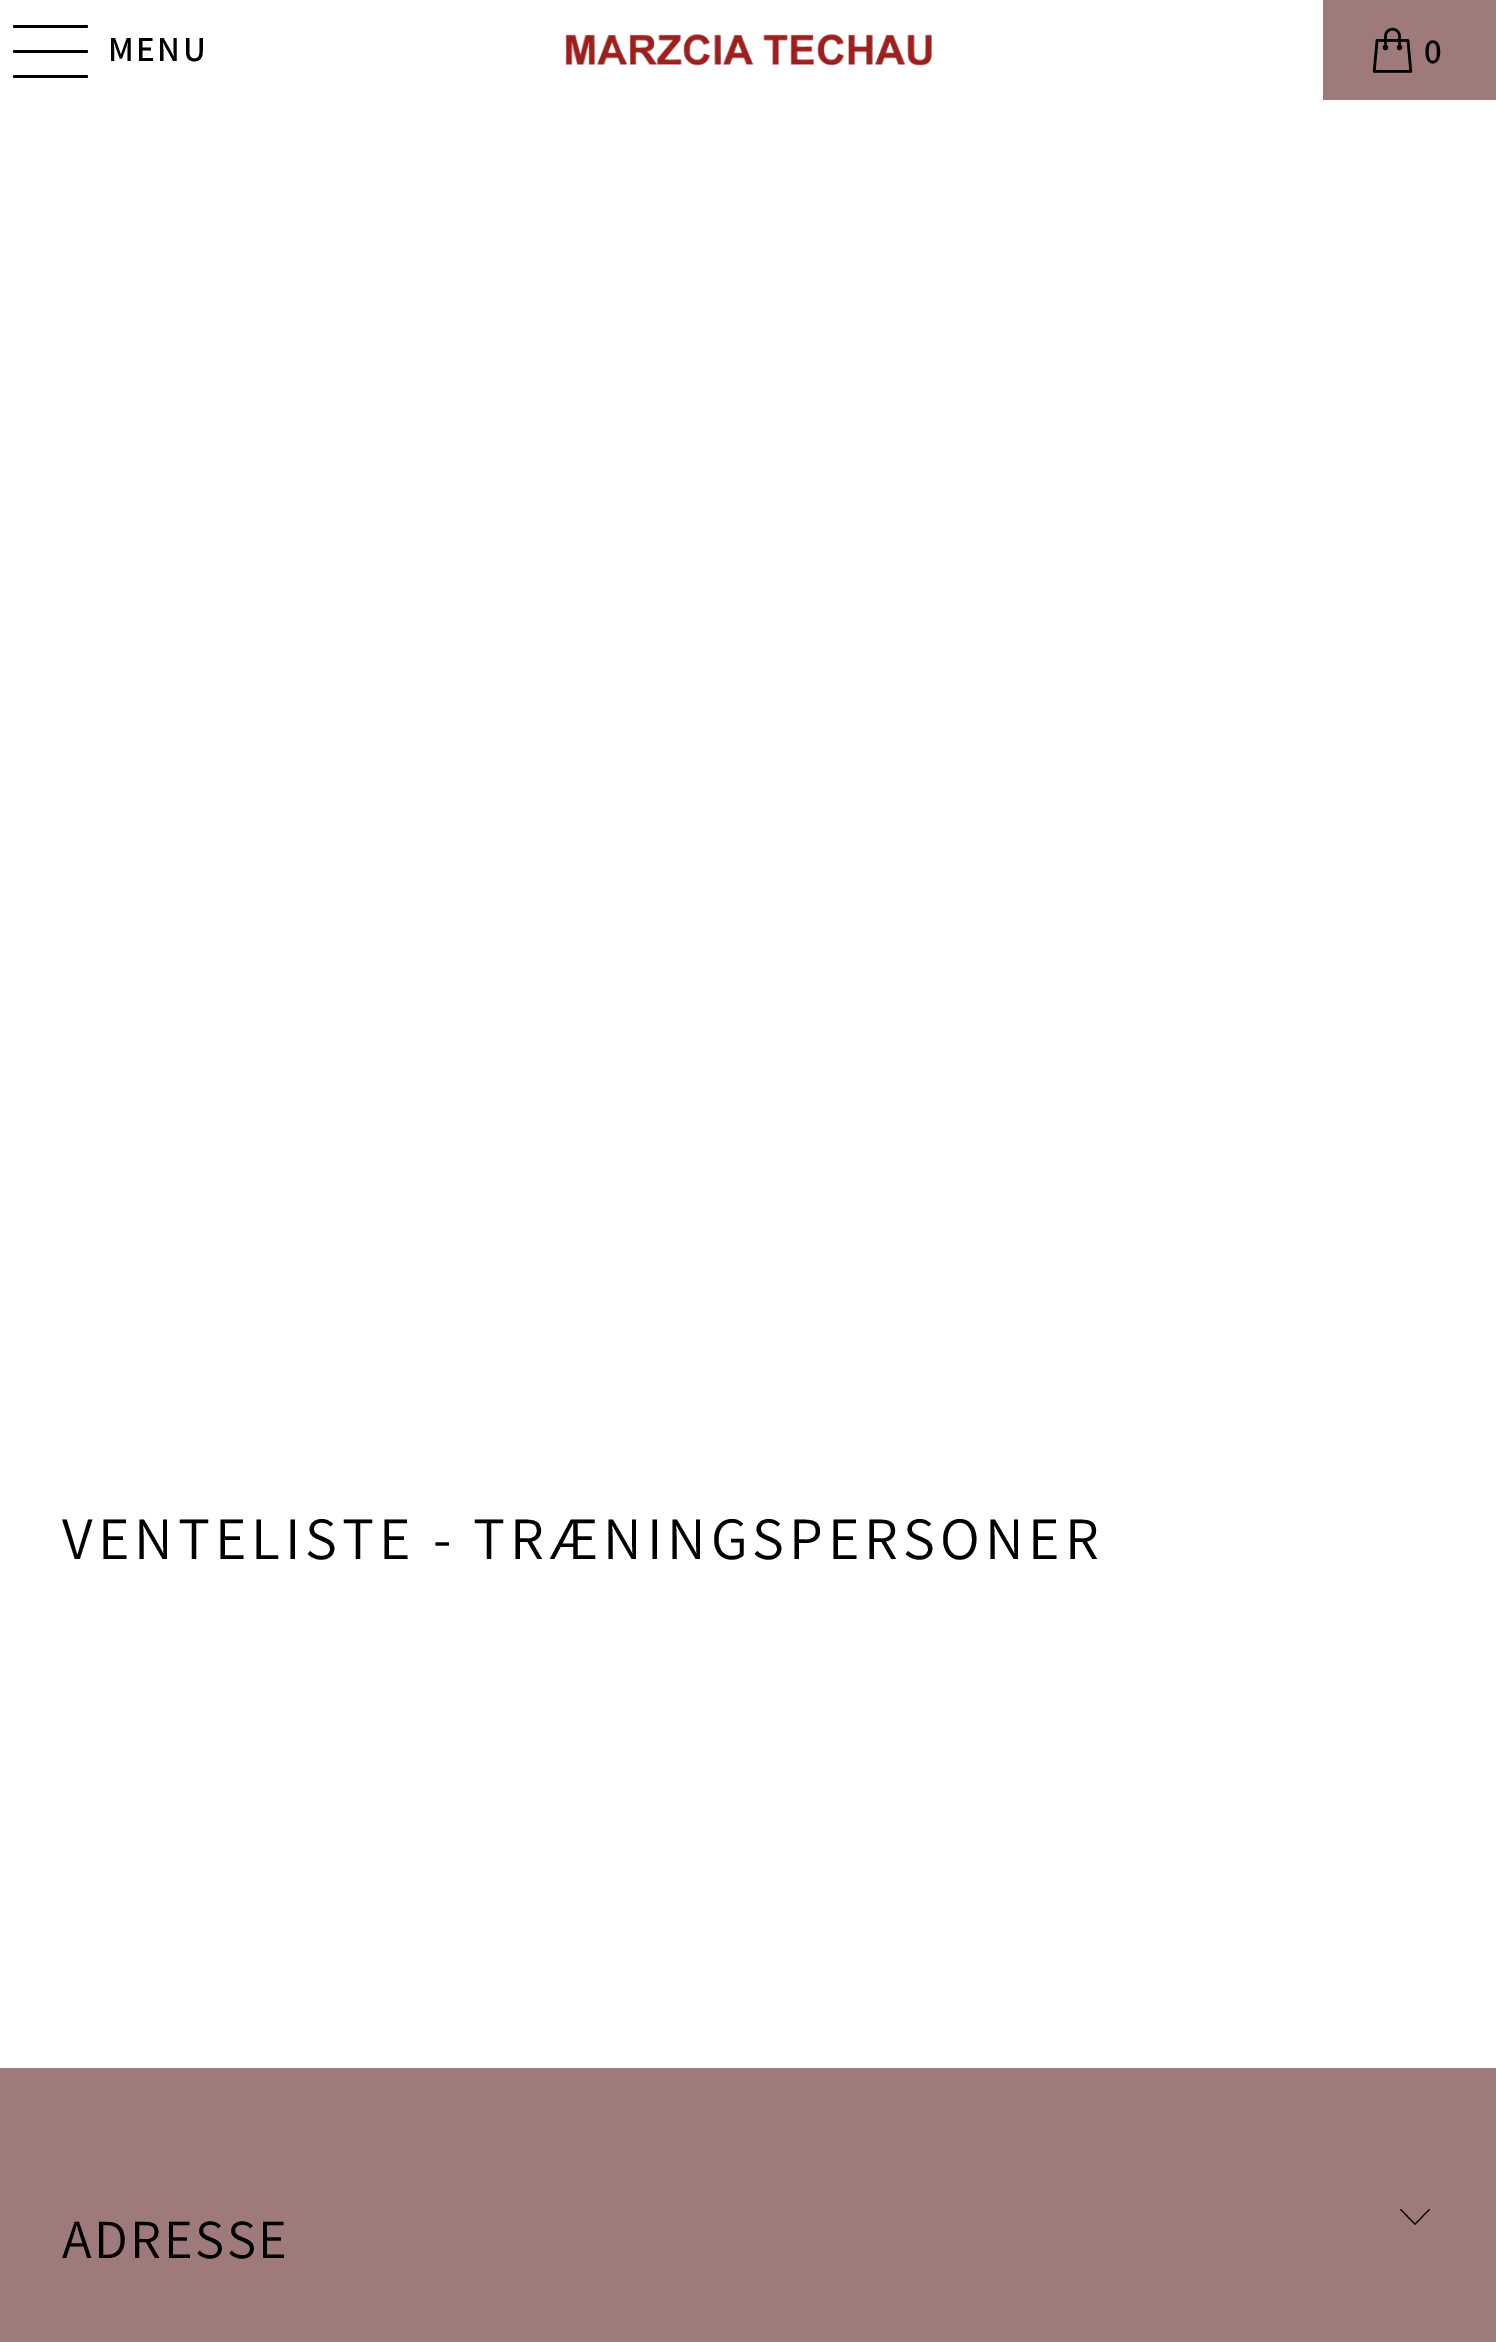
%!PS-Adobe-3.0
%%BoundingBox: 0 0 1496 2342
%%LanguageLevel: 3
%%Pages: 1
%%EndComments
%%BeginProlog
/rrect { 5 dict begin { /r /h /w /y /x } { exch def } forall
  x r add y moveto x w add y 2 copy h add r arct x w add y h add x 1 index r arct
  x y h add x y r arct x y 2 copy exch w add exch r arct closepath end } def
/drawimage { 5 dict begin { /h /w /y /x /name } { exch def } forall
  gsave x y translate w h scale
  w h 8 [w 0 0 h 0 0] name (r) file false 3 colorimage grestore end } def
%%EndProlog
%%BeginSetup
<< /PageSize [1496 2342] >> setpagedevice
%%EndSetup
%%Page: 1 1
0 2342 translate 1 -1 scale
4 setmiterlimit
1 setgray
0 0 1496 2342 rectfill
0 setgray
13 25 75 3 1.5 rrect fill
13 50 75 3 1.5 rrect fill
13 75 75 3 1.5 rrect fill
(images/1.raw) 564 34 368 32 drawimage
0.624 0.478 0.478 setrgbcolor
1323 0 173 100 rectfill
(images/2.raw) 1372 27 41 46 drawimage
0 2068 1496 274 rectfill
0 setgray
newpath 1415 2225 moveto 1400 2209.5 lineto 1401 2209 lineto 1415 2223.5 lineto 1429 2209 lineto 1430 2209.5 lineto closepath fill
/Assistant-SemiBold [35 0 0 -35 0 0] selectfont
108 61 moveto 2.5 0 (MENU) ashow
1424 63 moveto 2.5 0 (0) ashow
/Assistant-Regular [60 0 0 -60 0 0] selectfont
62 1559 moveto 5 0 (VENTELISTE - TRÆNINGSPERSONER) ashow
/Assistant-Regular [55 0 0 -55 0 0] selectfont
62 2258 moveto 2.5 0 (ADRESSE) ashow
showpage
%%EOF
